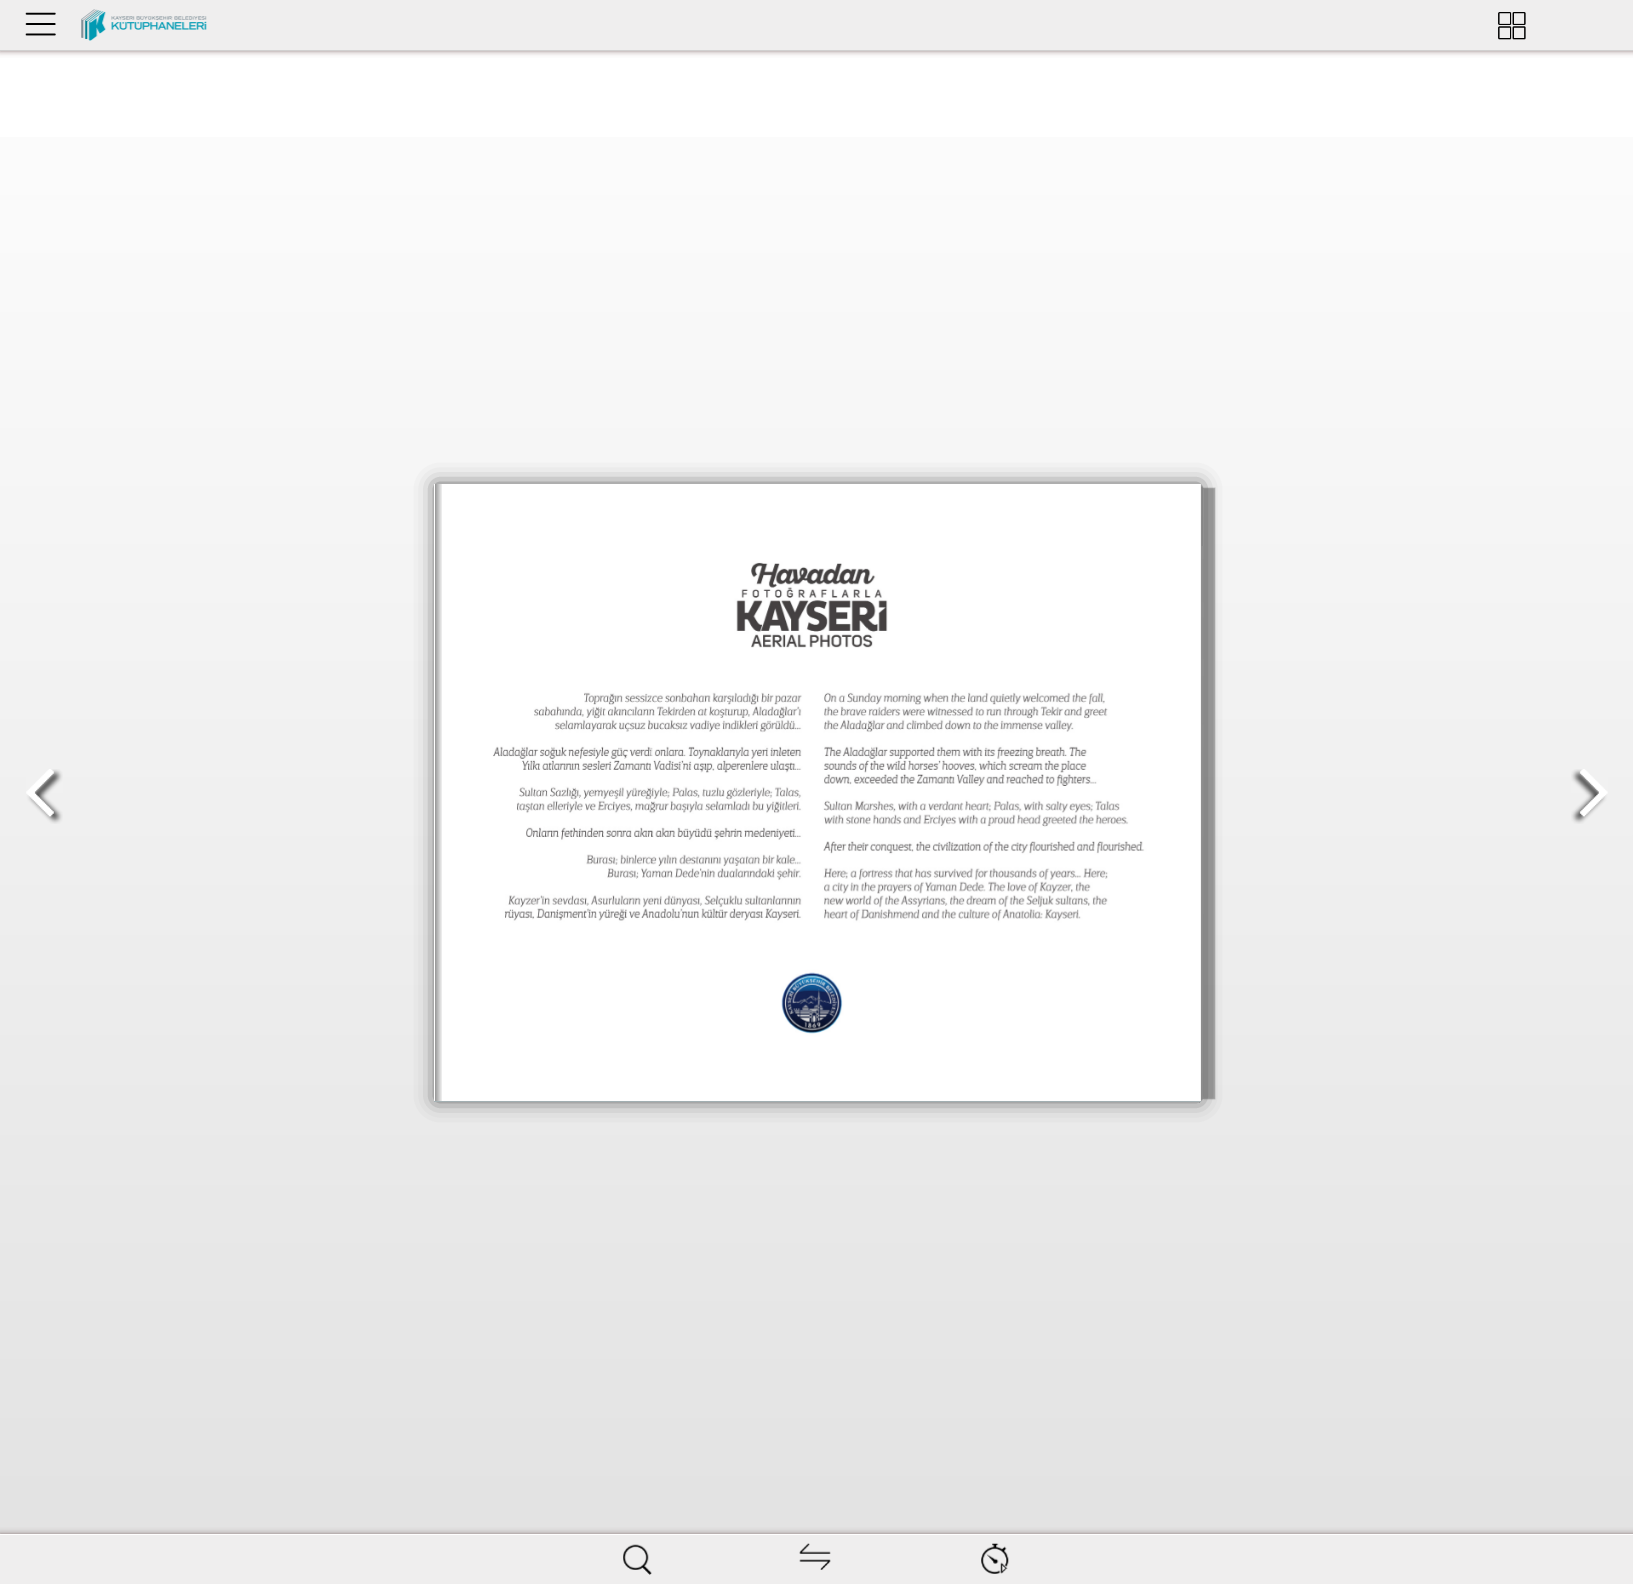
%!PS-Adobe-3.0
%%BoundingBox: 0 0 1633 1584
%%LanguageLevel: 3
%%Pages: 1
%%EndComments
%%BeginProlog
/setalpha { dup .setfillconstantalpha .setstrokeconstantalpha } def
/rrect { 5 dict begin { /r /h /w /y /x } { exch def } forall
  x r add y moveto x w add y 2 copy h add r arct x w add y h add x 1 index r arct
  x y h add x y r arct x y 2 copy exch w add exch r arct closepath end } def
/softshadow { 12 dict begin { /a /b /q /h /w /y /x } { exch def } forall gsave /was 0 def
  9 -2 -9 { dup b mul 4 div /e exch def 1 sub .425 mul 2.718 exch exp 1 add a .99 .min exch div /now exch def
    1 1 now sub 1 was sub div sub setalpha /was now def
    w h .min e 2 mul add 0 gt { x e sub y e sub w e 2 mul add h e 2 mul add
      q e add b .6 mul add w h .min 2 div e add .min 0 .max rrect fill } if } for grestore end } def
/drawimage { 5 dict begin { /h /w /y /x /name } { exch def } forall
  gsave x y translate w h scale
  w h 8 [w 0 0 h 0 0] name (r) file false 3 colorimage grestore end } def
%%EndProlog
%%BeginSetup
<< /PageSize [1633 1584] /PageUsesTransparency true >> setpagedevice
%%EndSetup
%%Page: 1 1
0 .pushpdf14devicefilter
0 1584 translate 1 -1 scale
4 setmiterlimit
1 setgray
0 0 1633 1584 rectfill
0.157 0 0 setrgbcolor
0 0 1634 51 0 3 0.5 softshadow
0.937 0.933 0.933 setrgbcolor
0 0 1633 50 rectfill
0.82 0.816 0.816 setrgbcolor
0 50 1633 1 rectfill
(images/1.raw) 25 12 31 24 drawimage
(images/2.raw) 81 9 126 32 drawimage
(images/3.raw) 1498 12 28 28 drawimage
gsave newpath 0 137 moveto 1633 137 lineto 1633 1534 lineto 0 1534 lineto closepath clip newpath
<< /ShadingType 2 /ColorSpace /DeviceRGB /Coords [817 0 817 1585] /Extend [true true] /Function << /FunctionType 2 /Domain [0 1] /C0 [1 1 1] /C1 [0.886 0.886 0.886] /N 1 >> >> shfill grestore
(images/4.raw) 26 769 37 55 drawimage
0.49 setgray
1194 488 21 611 0 0.5 0.7 softshadow
(images/6.raw) 1201 484 3 62 drawimage
(images/7.raw) 1201 546 3 494 drawimage
(images/9.raw) 434 1100 767 2 drawimage
(images/8.raw) 1199 1040 5 63 drawimage
0.157 setgray
435 484 766 617 0 9.5 0.7 softshadow
(images/10.raw) 434 1100 767 2 drawimage
0.91 setgray
444 484 757 617 rectfill
(images/5.raw) 434 484 767 618 drawimage
gsave newpath 435 484 moveto 444 484 lineto 444 1101 lineto 435 1101 lineto closepath clip newpath
<< /ShadingType 2 /ColorSpace /DeviceRGB /Coords [434 793 443 793] /Extend [true true] /Function << /FunctionType 2 /Domain [0 1] /C0 [0.537 0.537 0.537] /C1 [1 1 1] /N 1 >> >> shfill grestore
(images/11.raw) 1571 769 37 55 drawimage
0.157 0 0 setrgbcolor
0 1534 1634 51 0 3 0.5 softshadow
0.937 0.933 0.933 setrgbcolor
0 1535 1633 49 rectfill
1 setgray
0 1534 1633 1 rectfill
(images/12.raw) 623 1544 29 31 drawimage
(images/13.raw) 799 1543 32 27 drawimage
(images/14.raw) 981 1543 28 31 drawimage
.poppdf14devicefilter showpage
%%EOF
